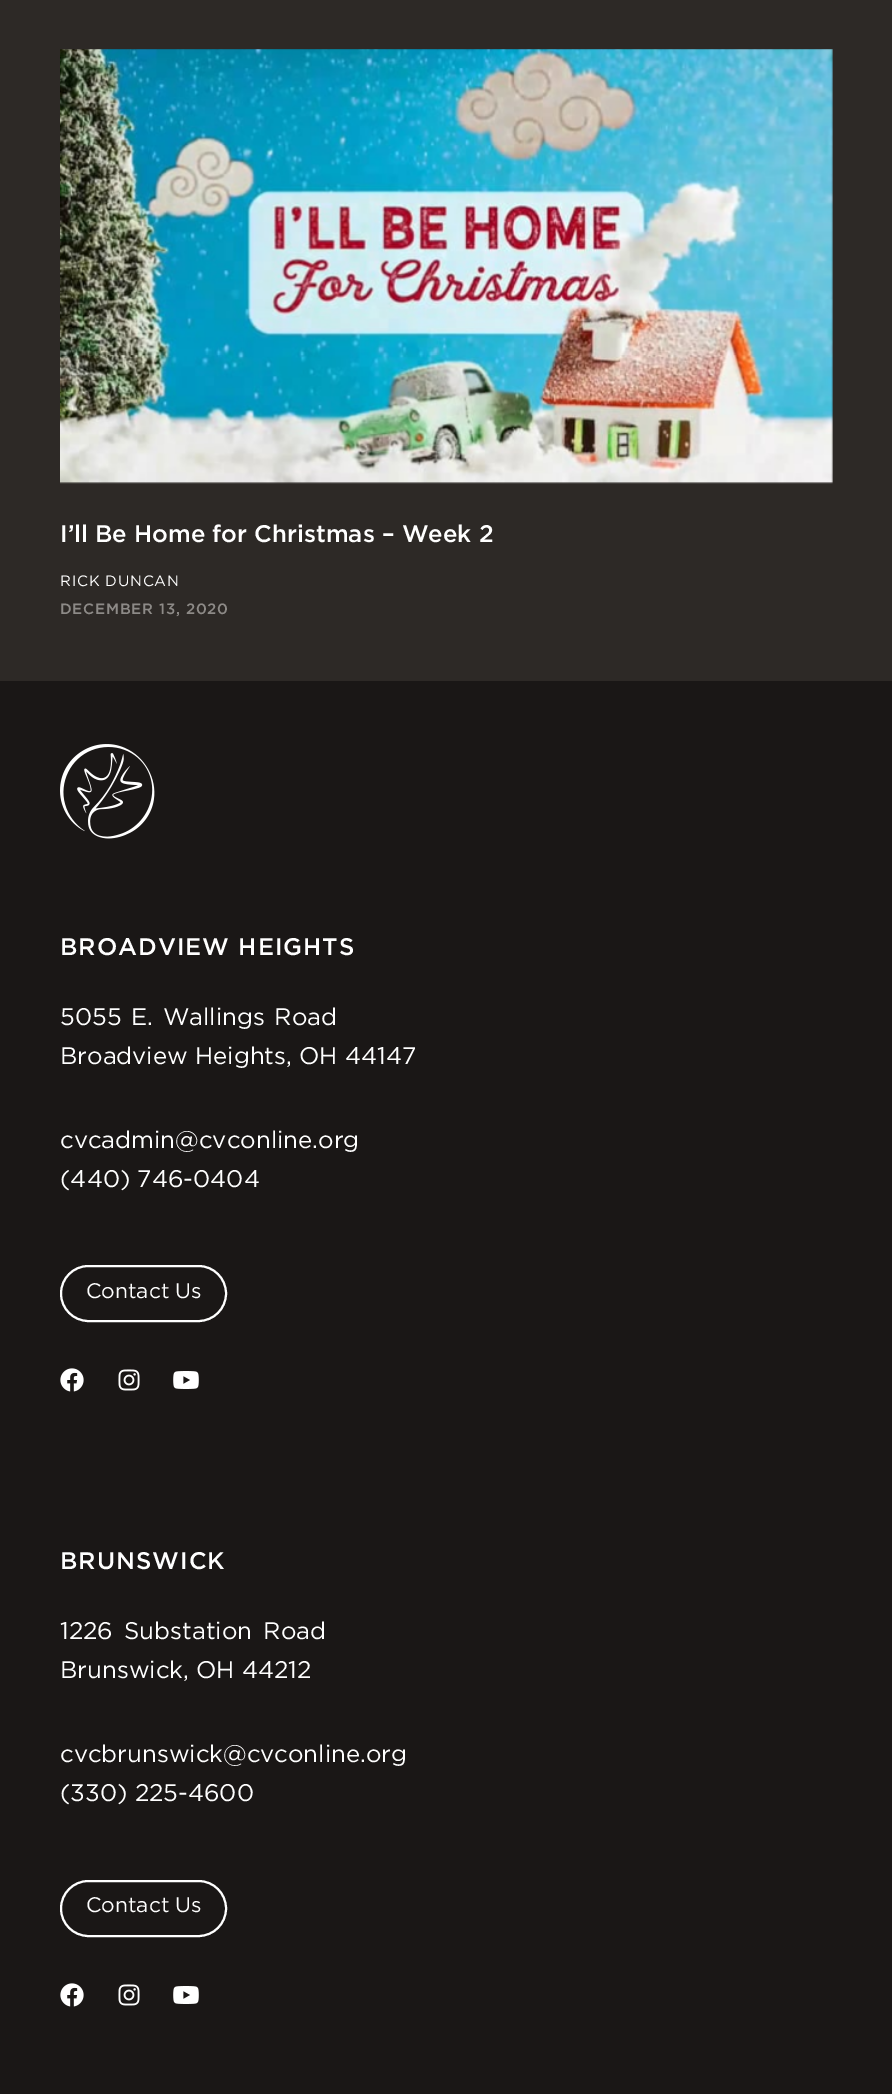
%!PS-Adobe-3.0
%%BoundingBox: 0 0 892 2094
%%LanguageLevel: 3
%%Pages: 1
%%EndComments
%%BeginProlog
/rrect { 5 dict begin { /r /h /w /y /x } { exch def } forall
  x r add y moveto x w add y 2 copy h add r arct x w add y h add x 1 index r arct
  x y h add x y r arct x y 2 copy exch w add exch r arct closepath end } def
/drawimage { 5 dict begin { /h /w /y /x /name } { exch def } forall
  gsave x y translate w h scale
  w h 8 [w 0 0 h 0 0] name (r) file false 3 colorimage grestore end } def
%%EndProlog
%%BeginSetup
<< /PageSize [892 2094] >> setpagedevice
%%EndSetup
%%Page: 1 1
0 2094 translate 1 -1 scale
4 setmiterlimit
0.176 0.161 0.149 setrgbcolor
0 0 892 2094 rectfill
(images/1.raw) 60 49 773 435 drawimage
0.102 0.09 0.086 setrgbcolor
0 681 892 1413 rectfill
(images/2.raw) 60 744 95 95 drawimage
1 setgray
2 setlinewidth
61 1266 165 55 27.5 rrect stroke
(images/3.raw) 60 1368 24 24 drawimage
(images/4.raw) 118 1369 22 22 drawimage
(images/5.raw) 173 1371 26 18 drawimage
61 1881 165 55 27.5 rrect stroke
(images/3.raw) 60 1983 24 24 drawimage
(images/4.raw) 118 1984 22 22 drawimage
(images/5.raw) 173 1986 26 18 drawimage
/Gotham-Medium [24 0 0 -24 0 0] selectfont
60 542 moveto (I’ll Be Home for Christmas – Week 2) show
/Gotham-Regular [15 0 0 -15 0 0] selectfont
60 586 moveto 0.75 0 (RICK DUNCAN) ashow
/Gotham-Medium [15 0 0 -15 0 0] selectfont
0.553 0.541 0.529 setrgbcolor
60 614 moveto 0.75 0 (DECEMBER 13, 2020) ashow
/Gotham-Medium [24 0 0 -24 0 0] selectfont
1 setgray
60 955 moveto 1 0 (BROADVIEW HEIGHTS) ashow
/Gotham-Regular [24 0 0 -24 0 0] selectfont
60 1025 moveto 2.5 0 32 (5055 E. Wallings Road) widthshow
60 1064 moveto (Broadview Heights, OH 44147) show
60 1148 moveto (cvcadmin@cvconline.org) show
60 1187 moveto (\(440\) 746-0404) show
/Gotham-Regular [21 0 0 -21 0 0] selectfont
86 1298 moveto (Contact Us) show
/Gotham-Medium [24 0 0 -24 0 0] selectfont
60 1569 moveto 1 0 (BRUNSWICK) ashow
/Gotham-Regular [24 0 0 -24 0 0] selectfont
60 1639 moveto 4 0 32 (1226 Substation Road) widthshow
60 1678 moveto (Brunswick, OH 44212) show
60 1762 moveto (cvcbrunswick@cvconline.org) show
60 1801 moveto (\(330\) 225-4600) show
/Gotham-Regular [21 0 0 -21 0 0] selectfont
86 1912 moveto (Contact Us) show
showpage
%%EOF
